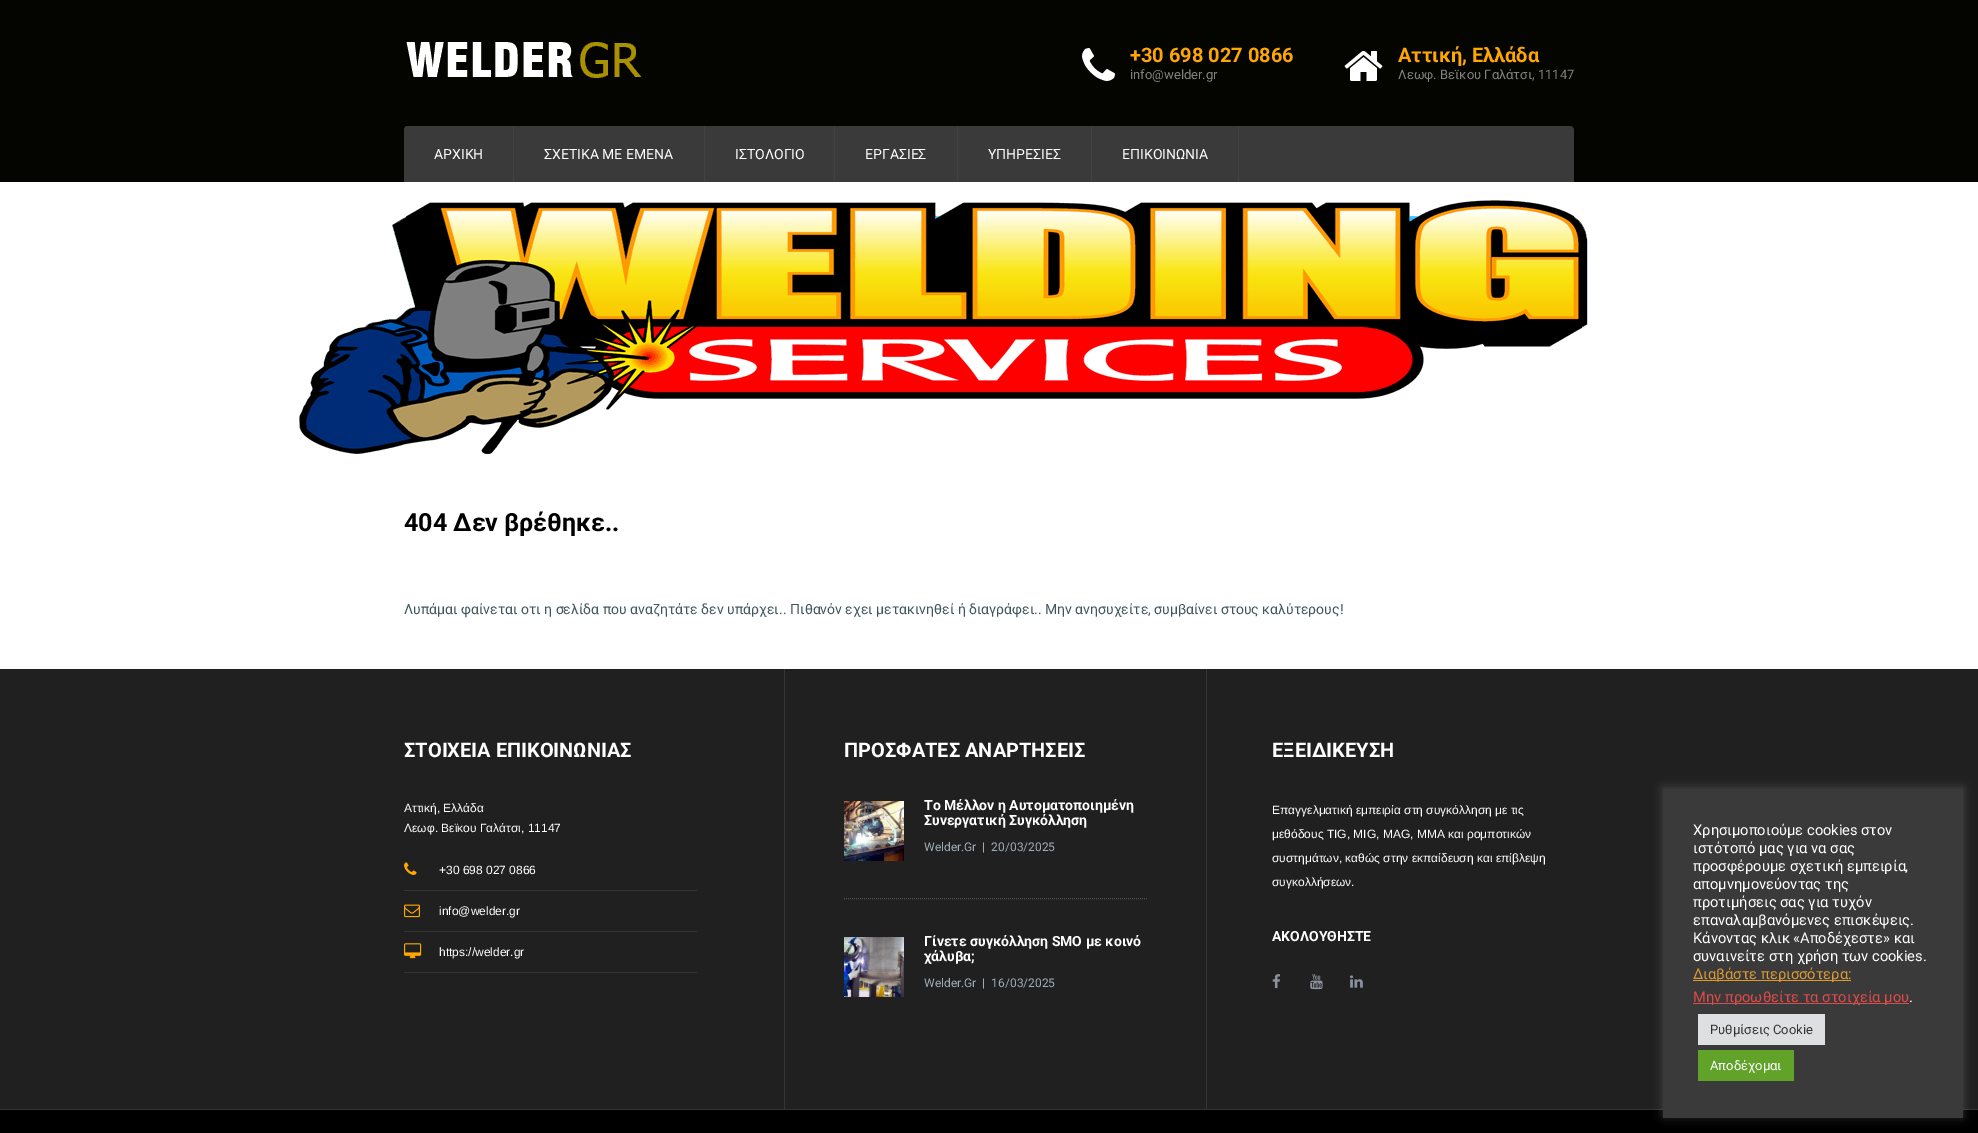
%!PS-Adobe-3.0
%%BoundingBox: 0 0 1978 1133
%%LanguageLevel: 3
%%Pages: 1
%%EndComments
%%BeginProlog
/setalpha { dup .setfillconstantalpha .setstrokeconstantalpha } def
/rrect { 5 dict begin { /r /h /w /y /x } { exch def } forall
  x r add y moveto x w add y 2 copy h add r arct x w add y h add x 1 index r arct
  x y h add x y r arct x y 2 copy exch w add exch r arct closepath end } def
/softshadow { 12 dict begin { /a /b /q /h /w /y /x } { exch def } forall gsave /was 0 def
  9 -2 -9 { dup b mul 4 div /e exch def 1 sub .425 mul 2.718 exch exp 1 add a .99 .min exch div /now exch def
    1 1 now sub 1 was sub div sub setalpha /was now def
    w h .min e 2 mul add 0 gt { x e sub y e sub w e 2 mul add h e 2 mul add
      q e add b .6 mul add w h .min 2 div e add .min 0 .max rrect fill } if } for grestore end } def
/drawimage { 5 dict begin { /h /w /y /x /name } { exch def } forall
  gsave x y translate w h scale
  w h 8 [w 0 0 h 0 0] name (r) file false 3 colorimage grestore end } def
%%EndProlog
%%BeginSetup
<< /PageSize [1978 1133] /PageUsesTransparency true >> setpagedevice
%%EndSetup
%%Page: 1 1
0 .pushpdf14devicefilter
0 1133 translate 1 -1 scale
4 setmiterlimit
1 setgray
0 0 1978 1133 rectfill
0.016 0.016 0 setrgbcolor
0 0 1978 182 rectfill
(images/1.raw) 406 42 235 36 drawimage
(images/2.raw) 1082 48 33 33 drawimage
(images/3.raw) 1344 50 39 31 drawimage
0.227 setgray
newpath 408 126 moveto 1570 126 lineto 1572 126 1574 128 1574 130 curveto 1574 182 lineto 404 182 lineto 404 130 lineto 404 128 406 126 408 126 curveto closepath fill
0.259 setgray
513 126 1 56 rectfill
0.227 setgray
newpath 408 126 moveto 513 126 lineto 513 182 lineto 404 182 lineto 404 130 lineto 404 128 406 126 408 126 curveto closepath fill
0.259 setgray
704 126 1 56 rectfill
834 126 1 56 rectfill
957 126 1 56 rectfill
1091 126 1 56 rectfill
1238 126 1 56 rectfill
(images/4.raw) 299 200 1289 254 drawimage
0.125 setgray
0 669 1978 440 rectfill
0.196 0.204 0.212 setrgbcolor
404 890 293 1 rectfill
(images/5.raw) 404 862 13 13 drawimage
404 931 293 1 rectfill
(images/6.raw) 404 904 16 14 drawimage
404 972 293 1 rectfill
(images/7.raw) 404 943 18 16 drawimage
0.2 0.208 0.212 setrgbcolor
1206 669 1 440 rectfill
784 669 1 440 rectfill
0.302 0.325 0.341 setrgbcolor
[1 1] 0 setdash
newpath 844 898.5 moveto 1148 898.5 lineto stroke
(images/8.raw) 844 801 60 60 drawimage
(images/9.raw) 844 937 60 60 drawimage
(images/10.raw) 1272 974 8 15 drawimage
(images/11.raw) 1310 974 13 16 drawimage
(images/12.raw) 1350 975 13 13 drawimage
0 setgray
0 1110 1978 23 rectfill
0.2 0.208 0.212 setrgbcolor
0 1109 1978 1 rectfill
0.675 0.671 0.671 setrgbcolor
1663 788 300 329 0 5 0.3 softshadow
0.227 setgray
1663 789 300 329 rectfill
0.867 0.6 0.2 setrgbcolor
1693 980 158 1 rectfill
0.867 0.294 0.294 setrgbcolor
1693 1003 216 1 rectfill
0.871 0.875 0.878 setrgbcolor
1698 1014 127 31 rectfill
0.38 0.635 0.161 setrgbcolor
1698 1050 96 31 rectfill
/Roboto-Bold [20 0 0 -20 0 0] selectfont
1 0.655 0 setrgbcolor
1130 62 moveto (+30 698 027 0866) show
/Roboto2-Regular [13 0 0 -13 0 0] selectfont
0.51 0.506 0.506 setrgbcolor
1130 79 moveto (info@welder.gr) show
/Roboto-Bold [20 0 0 -20 0 0] selectfont
1 0.655 0 setrgbcolor
1398 62 moveto (Αττική, Ελλάδα) show
/Roboto-Regular [13 0 0 -13 0 0] selectfont
0.51 0.506 0.506 setrgbcolor
1398 79 moveto (Λεωφ) show
/Roboto2-Regular [13 0 0 -13 0 0] selectfont
1433 79 moveto (.) show
/Roboto-Regular [13 0 0 -13 0 0] selectfont
1440 79 moveto (Βεϊκου Γαλάτσι) show
/Roboto2-Regular [13 0 0 -13 0 0] selectfont
1532 79 moveto (, 11147) show
/Roboto-Regular [14 0 0 -14 0 0] selectfont
1 setgray
434 159 moveto (ΑΡΧΙΚΗ) show
544 159 moveto (ΣΧΕΤΙΚΑ ΜΕ ΕΜΕΝΑ) show
735 159 moveto (ΙΣΤΟΛΟΓΙΟ) show
865 159 moveto (ΕΡΓΑΣΙΕΣ) show
988 159 moveto (ΥΠΗΡΕΣΙΕΣ) show
1122 159 moveto (ΕΠΙΚΟΙΝΩΝΙΑ) show
/Roboto-Bold [25 0 0 -25 0 0] selectfont
0 setgray
404 531 moveto (404 Δεν βρέθηκε..) show
/Roboto-Regular [14 0 0 -14 0 0] selectfont
0.251 0.341 0.373 setrgbcolor
404 614 moveto (Λυπάμαι φαίνεται οτι η σελίδα που αναζητάτε δεν υπάρχει) show
/Roboto2-Regular [14 0 0 -14 0 0] selectfont
779 614 moveto (..) show
/Roboto-Regular [14 0 0 -14 0 0] selectfont
790 614 moveto (Πιθανόν εχει μετακινηθεί ή διαγράφει) show
/Roboto2-Regular [14 0 0 -14 0 0] selectfont
1034 614 moveto (..) show
/Roboto-Regular [14 0 0 -14 0 0] selectfont
1045 614 moveto (Μην ανησυχείτε) show
/Roboto2-Regular [14 0 0 -14 0 0] selectfont
1148 614 moveto (,) show
/Roboto-Regular [14 0 0 -14 0 0] selectfont
1154 614 moveto (συμβαίνει στους καλύτερους) show
/Roboto2-Regular [14 0 0 -14 0 0] selectfont
1340 614 moveto (!) show
/Roboto-Bold [20 0 0 -20 0 0] selectfont
1 setgray
404 757 moveto (ΣΤΟΙΧΕΙΑ ΕΠΙΚΟΙΝΩΝΙΑΣ) show
/LiberationSans-Regular [12 0 0 -12 0 0] selectfont
404 812 moveto (Αττική, Ελλάδα) show
404 832 moveto (Λεωφ. Βεϊκου Γαλάτσι, 11147) show
439 874 moveto (+30 698 027 0866) show
439 915 moveto (info@welder.gr) show
439 956 moveto (https://welder.gr) show
/Roboto-Bold [20 0 0 -20 0 0] selectfont
844 757 moveto (ΠΡΟΣΦΑΤΕΣ ΑΝΑΡΤΗΣΕΙΣ) show
/Roboto-Bold [14 0 0 -14 0 0] selectfont
924 810 moveto (Το Μέλλον η Αυτοματοποιημένη) show
924 825 moveto (Συνεργατική Συγκόλληση) show
/Roboto2-Regular [12 0 0 -12 0 0] selectfont
0.62 0.675 0.71 setrgbcolor
924 851 moveto (Welder.Gr  |  20/03/2025) show
/Roboto-Bold [14 0 0 -14 0 0] selectfont
1 setgray
924 946 moveto (Γίνετε συγκόλληση SMO με κοινό) show
924 961 moveto (χάλυβα;) show
/Roboto2-Regular [12 0 0 -12 0 0] selectfont
0.62 0.675 0.71 setrgbcolor
924 987 moveto (Welder.Gr  |  16/03/2025) show
/Roboto-Bold [20 0 0 -20 0 0] selectfont
1 setgray
1272 757 moveto (ΕΞΕΙΔΙΚΕΥΣΗ) show
/LiberationSans-Regular [12 0 0 -12 0 0] selectfont
1272 814 moveto (Επαγγελματική εμπειρία στη συγκόλληση με τις) show
1272 838 moveto (μεθόδους TIG, MIG, MAG, MMA και ρομποτικών) show
1272 862 moveto (συστημάτων, καθώς στην εκπαίδευση και επίβλεψη) show
1272 886 moveto (συγκολλήσεων.) show
/Roboto-Bold [14 0 0 -14 0 0] selectfont
1272 941 moveto (ΑΚΟΛΟΥΘΗΣΤΕ) show
/Roboto-Regular [14.7 0 0 -14.7 0 0] selectfont
1693 835 moveto (Χρησιμοποιούμε) show
/Roboto2-Regular [14.7 0 0 -14.7 0 0] selectfont
1807 835 moveto (cookies) show
/Roboto-Regular [14.7 0 0 -14.7 0 0] selectfont
1861 835 moveto (στον) show
1693 853 moveto (ιστότοπό μας για να σας) show
1693 871 moveto (προσφέρουμε σχετική εμπειρία) show
/Roboto2-Regular [14.7 0 0 -14.7 0 0] selectfont
1905 871 moveto (,) show
/Roboto-Regular [14.7 0 0 -14.7 0 0] selectfont
1693 889 moveto (απομνημονεύοντας της) show
1693 907 moveto (προτιμήσεις σας για τυχόν) show
1693 925 moveto (επαναλαμβανόμενες επισκέψεις) show
/Roboto2-Regular [14.7 0 0 -14.7 0 0] selectfont
1910 925 moveto (.) show
/Roboto-Regular [14.7 0 0 -14.7 0 0] selectfont
1693 943 moveto (Κάνοντας κλικ) show
/Roboto2-Regular [14.7 0 0 -14.7 0 0] selectfont
1793 943 moveto («) show
/Roboto-Regular [14.7 0 0 -14.7 0 0] selectfont
1800 943 moveto (Αποδέχεστε) show
/Roboto2-Regular [14.7 0 0 -14.7 0 0] selectfont
1883 943 moveto (») show
/Roboto-Regular [14.7 0 0 -14.7 0 0] selectfont
1894 943 moveto (και) show
1693 961 moveto (συναινείτε στη χρήση των) show
/Roboto2-Regular [14.7 0 0 -14.7 0 0] selectfont
1872 961 moveto (cookies.) show
/Roboto-Regular [14.7 0 0 -14.7 0 0] selectfont
0.867 0.6 0.2 setrgbcolor
1693 979 moveto (Διαβάστε περισσότερα) show
/Roboto2-Regular [14.7 0 0 -14.7 0 0] selectfont
1848 979 moveto (:) show
/Roboto-Regular [14.7 0 0 -14.7 0 0] selectfont
0.867 0.294 0.294 setrgbcolor
1693 1002 moveto (Μην προωθείτε τα στοιχεία μου) show
/Roboto2-Regular [14.7 0 0 -14.7 0 0] selectfont
1 setgray
1909 1002 moveto (.) show
/Roboto-Regular [13 0 0 -13 0 0] selectfont
0.2 setgray
1710 1034 moveto (Ρυθμίσεις) show
/Roboto2-Regular [13 0 0 -13 0 0] selectfont
1773 1034 moveto (Cookie) show
/Roboto-Regular [13 0 0 -13 0 0] selectfont
1 setgray
1710 1070 moveto (Αποδέχομαι) show
.poppdf14devicefilter showpage
%%EOF
